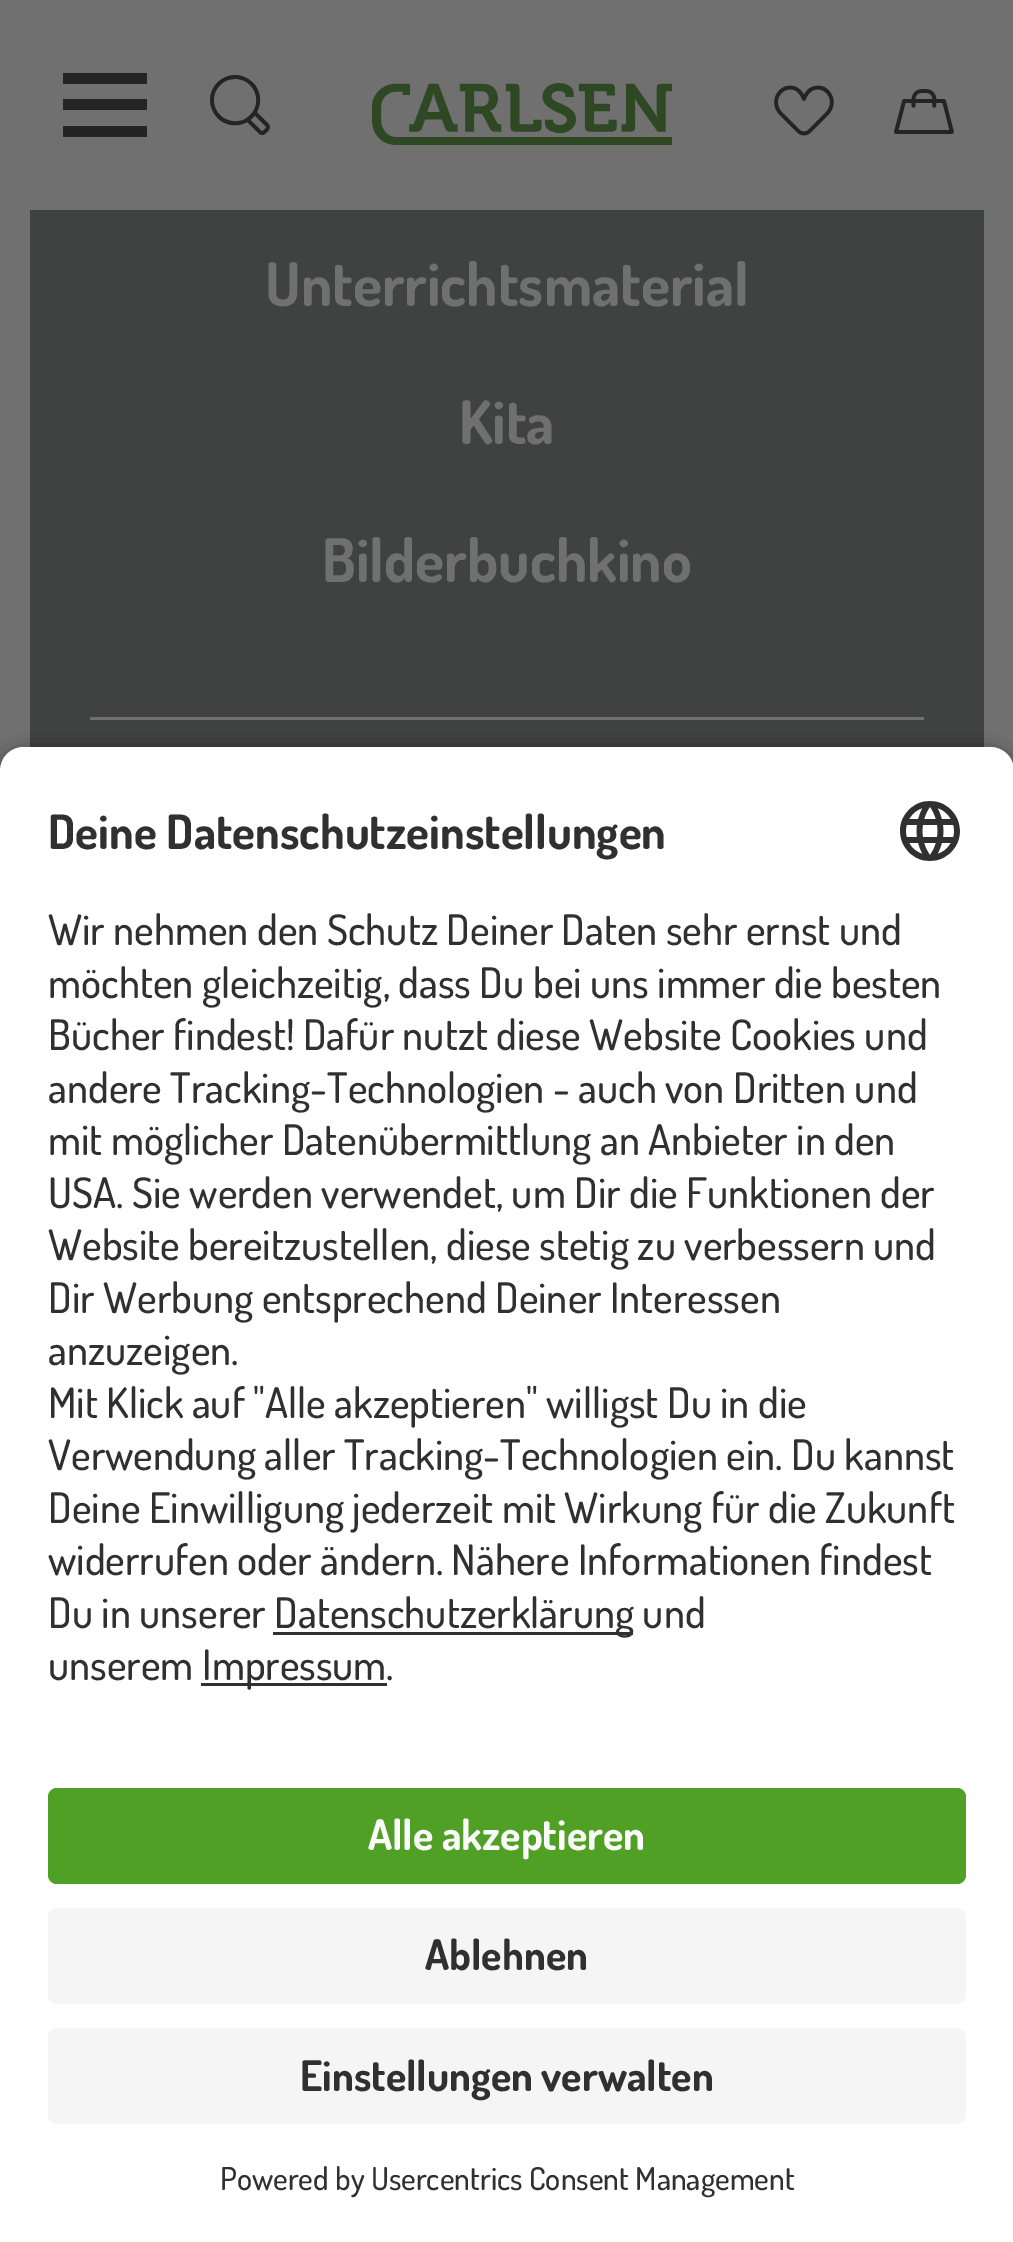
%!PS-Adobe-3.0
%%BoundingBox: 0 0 1013 2242
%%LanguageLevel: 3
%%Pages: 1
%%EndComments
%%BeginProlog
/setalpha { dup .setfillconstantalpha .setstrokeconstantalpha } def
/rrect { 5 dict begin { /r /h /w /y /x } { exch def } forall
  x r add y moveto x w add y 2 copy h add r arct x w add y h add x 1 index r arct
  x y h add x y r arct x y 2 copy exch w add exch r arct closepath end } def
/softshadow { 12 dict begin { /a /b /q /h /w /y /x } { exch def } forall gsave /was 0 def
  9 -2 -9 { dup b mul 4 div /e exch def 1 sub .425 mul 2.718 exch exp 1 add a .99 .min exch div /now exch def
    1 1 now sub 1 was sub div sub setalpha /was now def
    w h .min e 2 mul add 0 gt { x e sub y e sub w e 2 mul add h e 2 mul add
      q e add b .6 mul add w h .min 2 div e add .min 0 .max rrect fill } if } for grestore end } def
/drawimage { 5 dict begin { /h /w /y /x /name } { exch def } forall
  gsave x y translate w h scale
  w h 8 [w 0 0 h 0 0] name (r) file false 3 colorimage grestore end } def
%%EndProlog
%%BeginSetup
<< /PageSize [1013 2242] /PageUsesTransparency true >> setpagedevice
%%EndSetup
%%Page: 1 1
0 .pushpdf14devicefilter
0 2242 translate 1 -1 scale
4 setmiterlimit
0.439 setgray
0 0 1013 2242 rectfill
0.141 setgray
newpath 147 73 moveto 147 84 lineto 63 84 lineto 63 73 lineto closepath 147 99 moveto 147 110 lineto 63 110 lineto 63 99 lineto closepath 147 126 moveto 147 137 lineto 63 137 lineto 63 126 lineto closepath fill
(images/1.raw) 210 75 60 60 drawimage
(images/2.raw) 372 83 300 62 drawimage
(images/3.raw) 774 85 60 51 drawimage
(images/4.raw) 894 89 60 45 drawimage
0.251 0.255 0.255 setrgbcolor
30 210 954 537 rectfill
0.439 setgray
90 717 834 3 rectfill
0 setgray
0 756 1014 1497 24 10.5 0.8 softshadow
1 setgray
newpath 24 747 moveto 990 747 lineto 1003.5 747 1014 757.5 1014 771 curveto 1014 1752 lineto 0 1752 lineto 0 771 lineto 0 757.5 10.5 747 24 747 curveto closepath fill
(images/5.raw) 900 801 60 60 drawimage
0.188 setgray
273 1632 360 3 rectfill
201 1683 186 3 rectfill
1 setgray
0 1752 1013 490 rectfill
0.318 0.627 0.149 setrgbcolor
48 1788 918 96 9 rrect fill
0.961 setgray
48 1908 918 96 9 rrect fill
48 2028 918 96 9 rrect fill
/Dosis-Bold [60 0 0 -60 0 0] selectfont
0.439 setgray
265 306 moveto (Unterrichtsmaterial) show
459 444 moveto (Kita) show
322 582 moveto (Bilderbuchkino) show
/Dosis-Bold [47.25 0 0 -47.25 0 0] selectfont
0.188 setgray
48 849 moveto (Deine Datenschutzeinstellungen) show
/Dosis-Medium [42 0 0 -42 0 0] selectfont
48 945 moveto (Wir nehmen den Schutz Deiner Daten sehr ernst und) show
48 998 moveto (möchten gleichzeitig, dass Du bei uns immer die besten) show
48 1050 moveto (Bücher findest! Dafür nutzt diese Website Cookies und) show
48 1103 moveto (andere Tracking-Technologien - auch von Dritten und) show
48 1155 moveto (mit möglicher Datenübermittlung an Anbieter in den) show
48 1208 moveto (USA. Sie werden verwendet, um Dir die Funktionen der) show
48 1260 moveto (Website bereitzustellen, diese stetig zu verbessern und) show
48 1313 moveto (Dir Werbung entsprechend Deiner Interessen) show
48 1365 moveto (anzuzeigen.) show
48 1418 moveto (Mit Klick auf "Alle akzeptieren" willigst Du in die) show
48 1470 moveto (Verwendung aller Tracking-Technologien ein. Du kannst) show
48 1523 moveto (Deine Einwilligung jederzeit mit Wirkung für die Zukunft) show
48 1575 moveto (widerrufen oder ändern. Nähere Informationen findest) show
48 1628 moveto (Du in unserer) show
274 1628 moveto (Datenschutzerklärung und) show
48 1680 moveto (unserem) show
202 1680 moveto (Impressum.) show
/Dosis-Bold [42 0 0 -42 0 0] selectfont
0.98 setgray
368 1850 moveto (Alle akzeptieren) show
0.188 setgray
425 1970 moveto (Ablehnen) show
300 2091 moveto (Einstellungen verwalten) show
/Dosis-Medium [31.5 0 0 -31.5 0 0] selectfont
220 2190 moveto (Powered by Usercentrics Consent Management) show
.poppdf14devicefilter showpage
%%EOF
